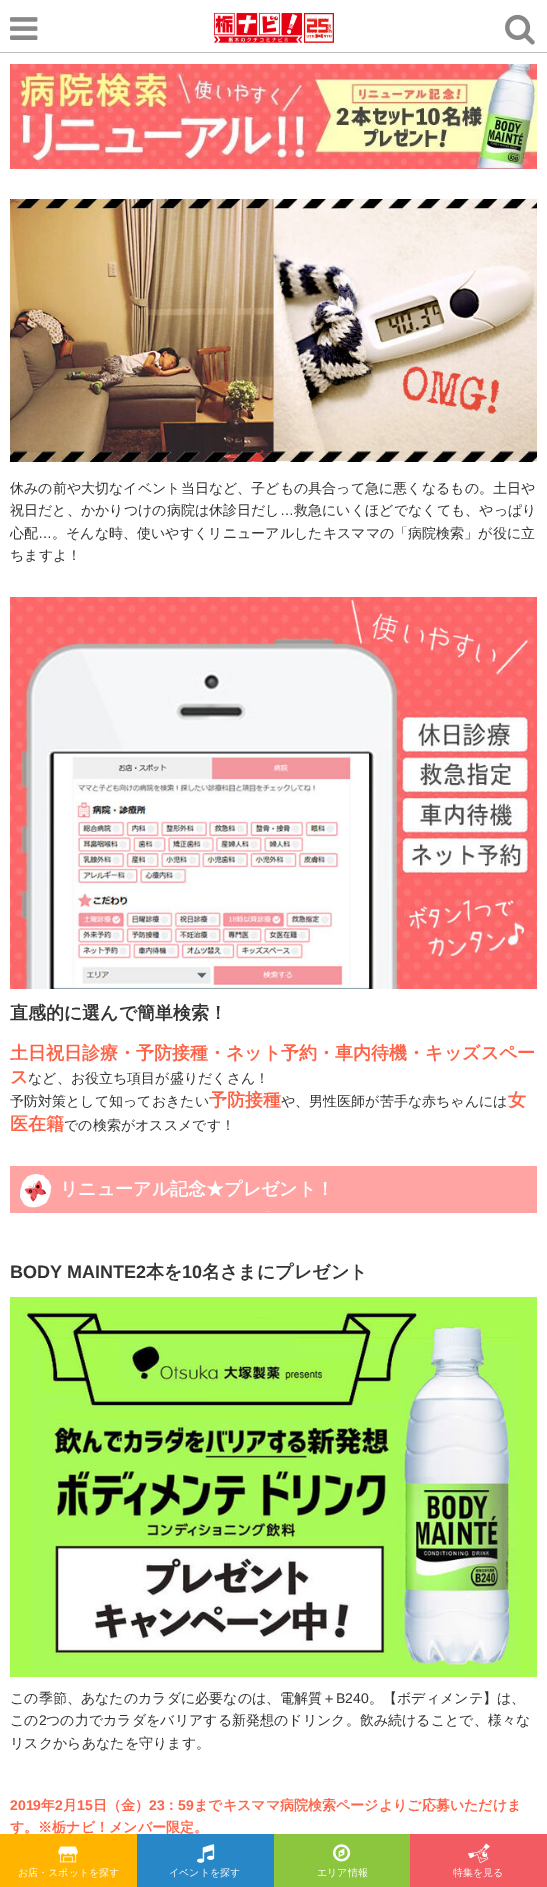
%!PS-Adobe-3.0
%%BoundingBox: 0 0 547 1887
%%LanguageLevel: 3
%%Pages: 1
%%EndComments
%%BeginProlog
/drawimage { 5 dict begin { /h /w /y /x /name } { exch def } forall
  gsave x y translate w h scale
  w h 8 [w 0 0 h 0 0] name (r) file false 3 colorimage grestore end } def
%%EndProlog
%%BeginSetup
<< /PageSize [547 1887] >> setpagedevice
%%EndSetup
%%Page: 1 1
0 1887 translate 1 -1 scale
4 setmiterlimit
1 setgray
0 0 547 1887 rectfill
0.749 setgray
0 52 547 1 rectfill
(images/1.raw) 10 17 28 23 drawimage
(images/2.raw) 213 12 121 31 drawimage
(images/3.raw) 505 14 30 31 drawimage
(images/4.raw) 10 64 527 105 drawimage
(images/5.raw) 10 199 527 263 drawimage
(images/6.raw) 10 597 527 392 drawimage
1 0.639 0.639 setrgbcolor
10 1166 527 47 rectfill
(images/7.raw) 20 1174 249 38 drawimage
(images/8.raw) 10 1297 527 380 drawimage
0.549 0.776 0.247 setrgbcolor
274 1834 136 53 rectfill
(images/11.raw) 333 1844 18 18 drawimage
0.949 0.357 0.38 setrgbcolor
410 1834 137 53 rectfill
(images/12.raw) 468 1843 22 21 drawimage
/WenQuanYiZenHei-Medium [14 0 0 -14 0 0] selectfont
0.2 setgray
10 493 moveto (休みの前や大切なイベント当日など、子どもの具合って急に悪くなるもの。土日や) show
10 515 moveto (祝日だと、かかりつけの病院は休診日だし) show
/LiberationSans-Regular [14 0 0 -14 0 0] selectfont
280 515 moveto (…) show
/WenQuanYiZenHei-Medium [14 0 0 -14 0 0] selectfont
294 515 moveto (救急にいくほどでなくても、やっぱり) show
10 538 moveto (心配) show
/LiberationSans-Regular [14 0 0 -14 0 0] selectfont
38 538 moveto (…) show
/WenQuanYiZenHei-Medium [14 0 0 -14 0 0] selectfont
52 538 moveto (。そんな時、使いやすくリニューアルしたキスママの「病院検索」が役に立) show
10 560 moveto (ちますよ！) show
/WenQuanYiZenHei-Bold [18 0 0 -18 0 0] selectfont
10 1019 moveto (直感的に選んで簡単検索！) show
1 0.388 0.278 setrgbcolor
10 1059 moveto (土日祝日診療・予防接種・ネット予約・車内待機・キッズスペー) show
10 1083 moveto (ス) show
/WenQuanYiZenHei-Medium [14 0 0 -14 0 0] selectfont
0.2 setgray
28 1083 moveto (など、お役立ち項目が盛りだくさん！) show
10 1106 moveto (予防対策として知っておきたい) show
/WenQuanYiZenHei-Bold [18 0 0 -18 0 0] selectfont
1 0.388 0.278 setrgbcolor
209 1106 moveto (予防接種) show
/WenQuanYiZenHei-Medium [14 0 0 -14 0 0] selectfont
0.2 setgray
281 1106 moveto (や、男性医師が苦手な赤ちゃんには) show
/WenQuanYiZenHei-Bold [18 0 0 -18 0 0] selectfont
1 0.388 0.278 setrgbcolor
508 1106 moveto (女) show
10 1130 moveto (医在籍) show
/WenQuanYiZenHei-Medium [14 0 0 -14 0 0] selectfont
0.2 setgray
64 1130 moveto (での検索がオススメです！) show
/WenQuanYiZenHei-Bold [18 0 0 -18 0 0] selectfont
1 setgray
60 1195 moveto (リニューアル記念★プレゼント！) show
/LiberationSans-Bold [18 0 0 -18 0 0] selectfont
0.2 setgray
10 1278 moveto (BODY MAINTE2) show
/WenQuanYiZenHei-Bold [18 0 0 -18 0 0] selectfont
146 1278 moveto (本を) show
/LiberationSans-Bold [18 0 0 -18 0 0] selectfont
182 1278 moveto (10) show
/WenQuanYiZenHei-Bold [18 0 0 -18 0 0] selectfont
202 1278 moveto (名さまにプレゼント) show
/WenQuanYiZenHei-Medium [14 0 0 -14 0 0] selectfont
10 1703 moveto (この季節、あなたのカラダに必要なのは、電解質＋) show
/LiberationSans-Regular [14 0 0 -14 0 0] selectfont
336 1703 moveto (B240) show
/WenQuanYiZenHei-Medium [14 0 0 -14 0 0] selectfont
369 1703 moveto (。【ボディメンテ】は、) show
10 1725 moveto (この) show
/LiberationSans-Regular [14 0 0 -14 0 0] selectfont
39 1725 moveto (2) show
/WenQuanYiZenHei-Medium [14 0 0 -14 0 0] selectfont
46 1725 moveto (つの力でカラダをバリアする新発想のドリンク。飲み続けることで、様々な) show
10 1748 moveto (リスクからあなたを守ります。) show
/LiberationSans-Bold [14 0 0 -14 0 0] selectfont
1 0.388 0.278 setrgbcolor
10 1810 moveto (2019) show
/WenQuanYiZenHei-Bold [14 0 0 -14 0 0] selectfont
41 1810 moveto (年) show
/LiberationSans-Bold [14 0 0 -14 0 0] selectfont
55 1810 moveto (2) show
/WenQuanYiZenHei-Bold [14 0 0 -14 0 0] selectfont
63 1810 moveto (月) show
/LiberationSans-Bold [14 0 0 -14 0 0] selectfont
77 1810 moveto (15) show
/WenQuanYiZenHei-Bold [14 0 0 -14 0 0] selectfont
93 1810 moveto (日（金）) show
/LiberationSans-Bold [14 0 0 -14 0 0] selectfont
149 1810 moveto (23) show
/WenQuanYiZenHei-Bold [14 0 0 -14 0 0] selectfont
164 1810 moveto (：) show
/LiberationSans-Bold [14 0 0 -14 0 0] selectfont
178 1810 moveto (59) show
/WenQuanYiZenHei-Bold [14 0 0 -14 0 0] selectfont
194 1810 moveto (までキスママ病院検索ページよりご応募いただけま) show
10 1832 moveto (す。※栃ナビ！メンバー限定。) show
1 0.706 0 setrgbcolor
0 1834 137 53 rectfill
(images/9.raw) 58 1846 20 17 drawimage
/WenQuanYiZenHei-Medium [10 0 0 -10 0 0] selectfont
1 setgray
18 1876 moveto (お店・スポットを探す) show
0.157 0.533 0.78 setrgbcolor
137 1834 137 53 rectfill
(images/10.raw) 197 1844 18 19 drawimage
1 setgray
169 1876 moveto (イベントを探す) show
317 1876 moveto (エリア情報) show
453 1876 moveto (特集を見る) show
showpage
%%EOF
